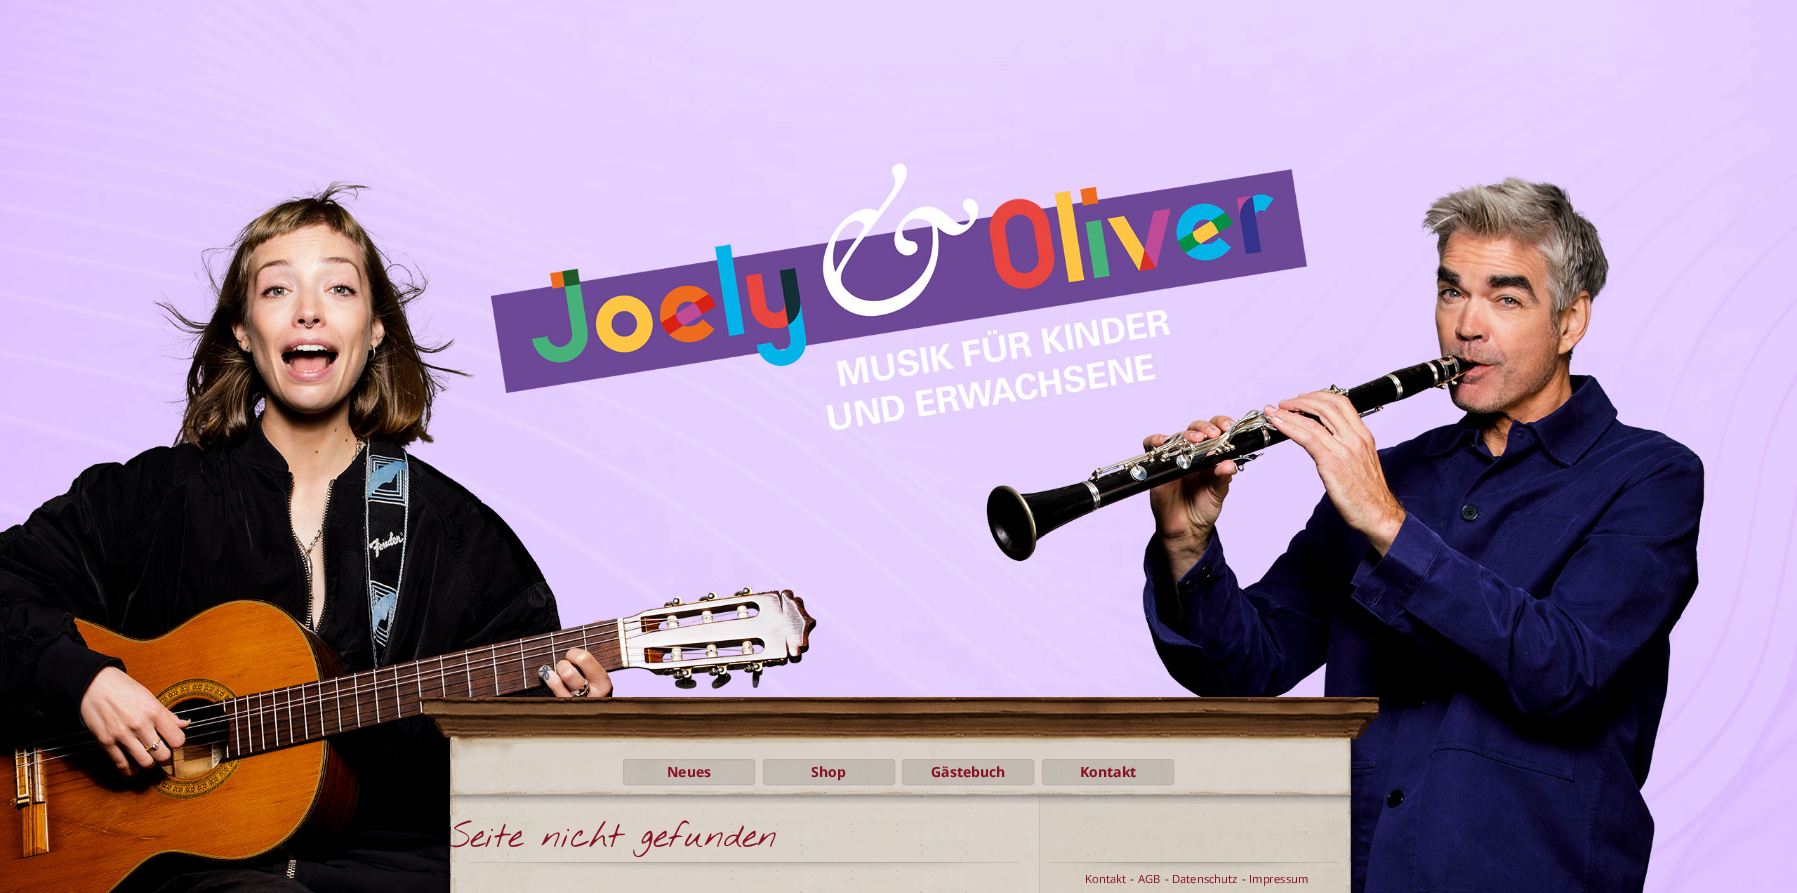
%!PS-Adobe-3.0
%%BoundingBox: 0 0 1797 893
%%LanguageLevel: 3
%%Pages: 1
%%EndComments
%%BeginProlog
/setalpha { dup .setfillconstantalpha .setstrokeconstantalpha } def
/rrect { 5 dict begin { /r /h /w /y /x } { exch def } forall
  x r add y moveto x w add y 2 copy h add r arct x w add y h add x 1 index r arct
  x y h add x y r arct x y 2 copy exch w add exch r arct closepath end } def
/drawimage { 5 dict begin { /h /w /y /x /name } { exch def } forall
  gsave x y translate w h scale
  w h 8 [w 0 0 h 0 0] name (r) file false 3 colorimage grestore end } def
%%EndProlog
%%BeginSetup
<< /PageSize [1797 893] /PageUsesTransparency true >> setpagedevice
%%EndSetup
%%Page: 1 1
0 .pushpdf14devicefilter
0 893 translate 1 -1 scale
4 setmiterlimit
1 setgray
0 0 1797 893 rectfill
(images/1.raw) 0 0 1797 893 drawimage
(images/2.raw) 419 697 960 62 drawimage
(images/3.raw) 450 759 913 56 drawimage
(images/4.raw) 450 759 901 45 drawimage
0.1 setalpha
0 setgray
623.5 759.5 131 25 2.5 rrect fill
1 setalpha
0.745 0.69 0.643 setrgbcolor
623.5 759.5 131 25 2.5 rrect stroke
0.1 setalpha
0 setgray
763.5 759.5 131 25 2.5 rrect fill
1 setalpha
0.745 0.69 0.643 setrgbcolor
763.5 759.5 131 25 2.5 rrect stroke
0.1 setalpha
0 setgray
902.5 759.5 131 25 2.5 rrect fill
1 setalpha
0.745 0.69 0.643 setrgbcolor
902.5 759.5 131 25 2.5 rrect stroke
0.1 setalpha
0 setgray
1042.5 759.5 131 25 2.5 rrect fill
1 setalpha
0.745 0.69 0.643 setrgbcolor
1042.5 759.5 131 25 2.5 rrect stroke
(images/5.raw) 446 815 916 78 drawimage
(images/6.raw) 450 862 901 31 drawimage
/OpenSans-Bold [14 0 0 -14 0 0] selectfont
0.533 0.067 0.133 setrgbcolor
667 777 moveto (Neues) show
811 777 moveto (Shop) show
931 777 moveto (Gästebuch) show
1080 777 moveto (Kontakt) show
/NothingYouCouldDo-Regular [35 0 0 -35 0 0] selectfont
449 847 moveto (Seite nicht gefunden) show
/OpenSans-Regular [11.25 0 0 -11.25 0 0] selectfont
1085 883 moveto (Kontakt) show
0.333 0.2 0.133 setrgbcolor
1130 883 moveto (-) show
0.533 0.067 0.133 setrgbcolor
1138 883 moveto (AGB) show
0.333 0.2 0.133 setrgbcolor
1165 883 moveto (-) show
0.533 0.067 0.133 setrgbcolor
1172 883 moveto (Datenschutz) show
0.333 0.2 0.133 setrgbcolor
1242 883 moveto (-) show
0.533 0.067 0.133 setrgbcolor
1249 883 moveto (Impressum) show
.poppdf14devicefilter showpage
%%EOF
